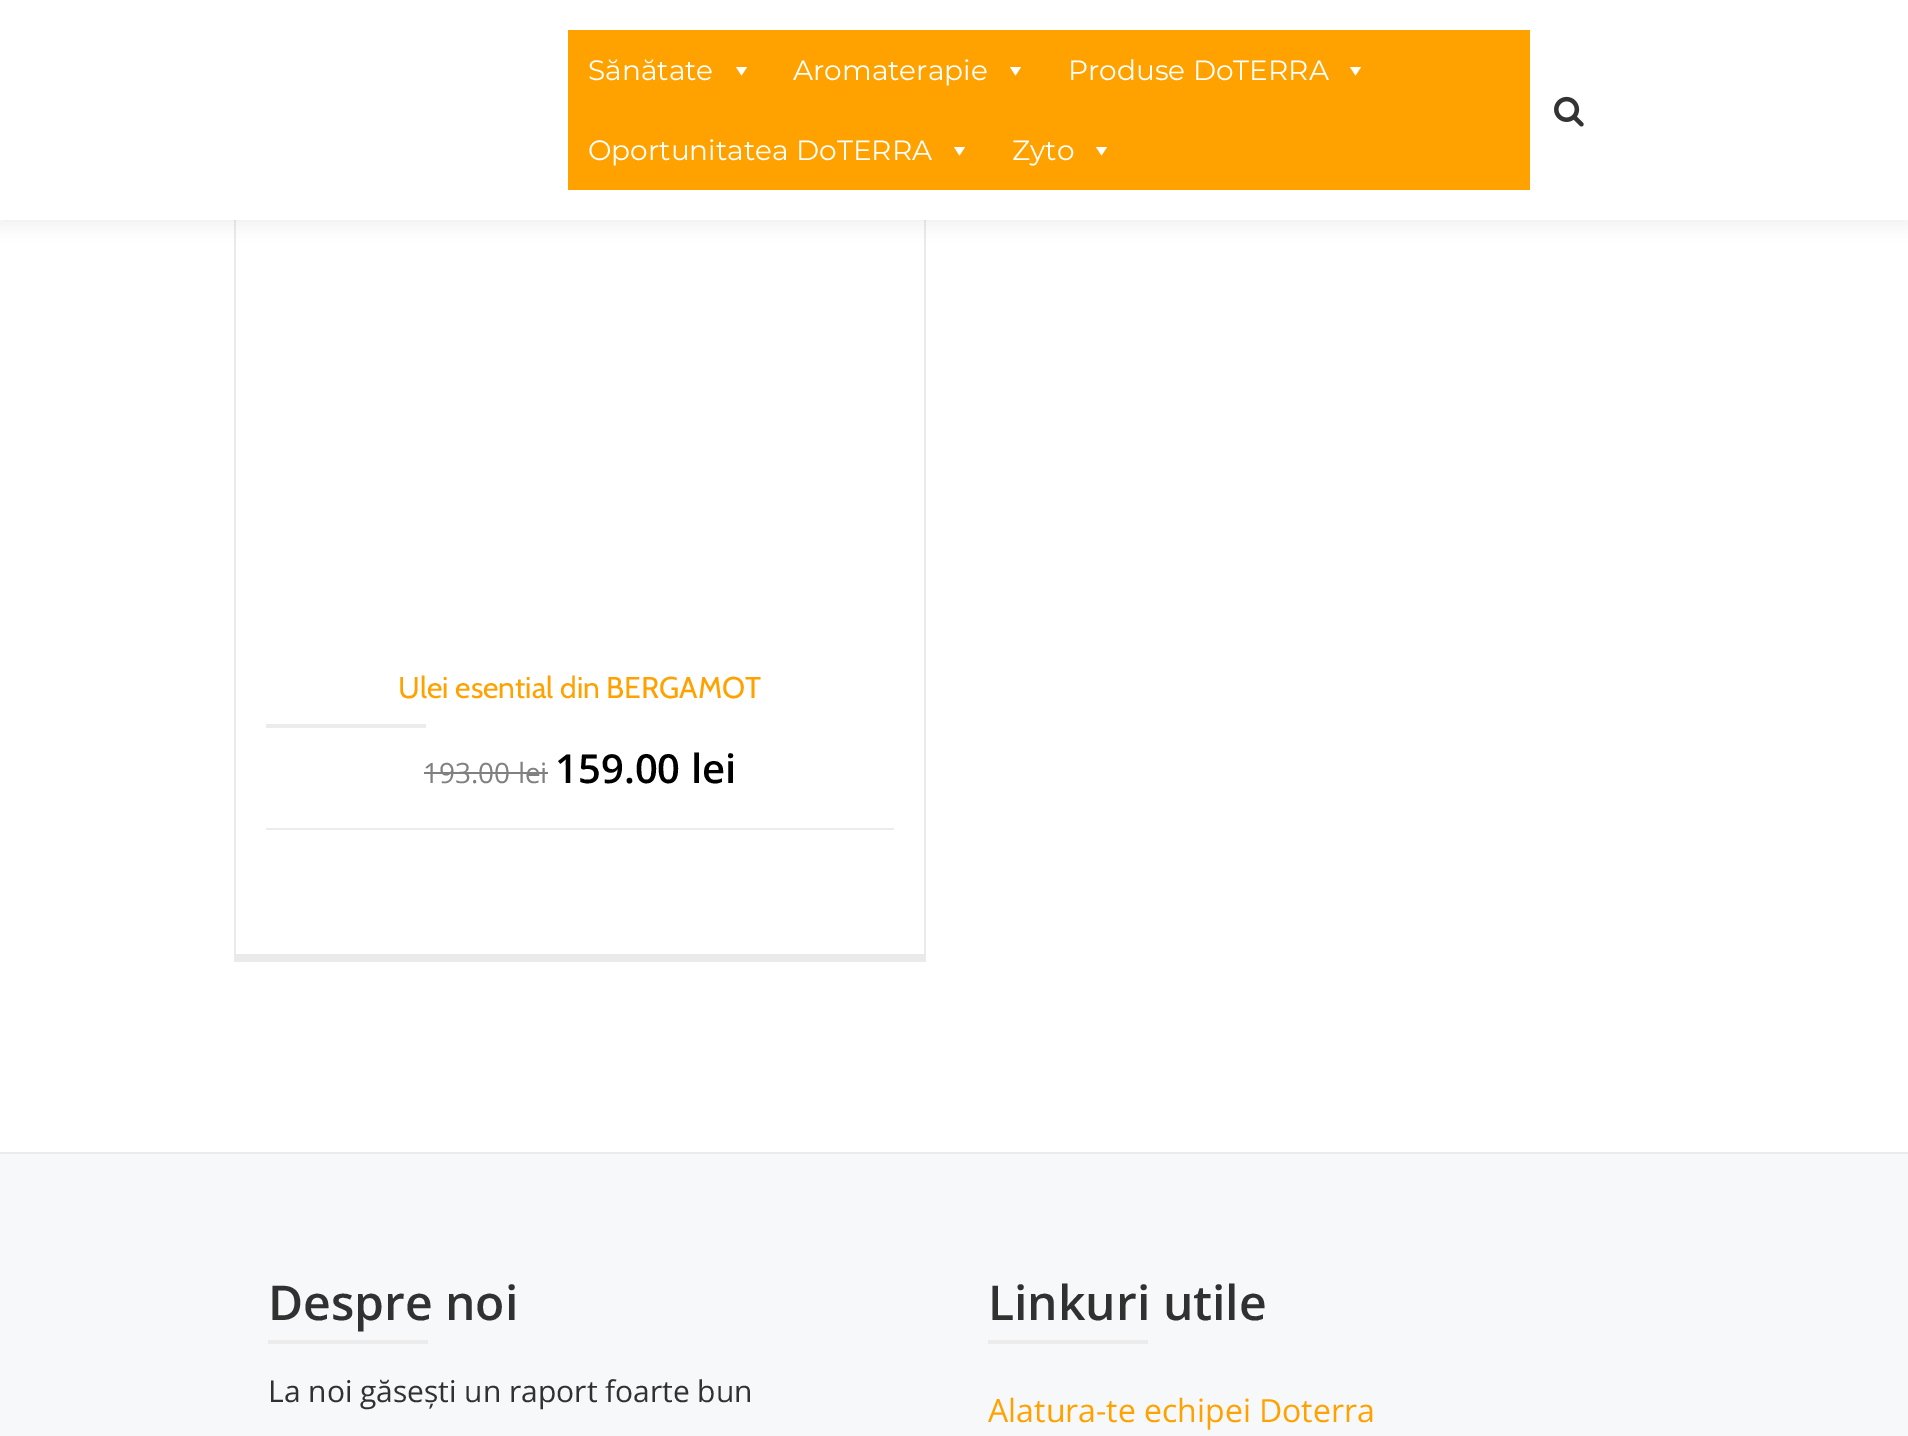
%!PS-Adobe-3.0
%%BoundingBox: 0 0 1908 1436
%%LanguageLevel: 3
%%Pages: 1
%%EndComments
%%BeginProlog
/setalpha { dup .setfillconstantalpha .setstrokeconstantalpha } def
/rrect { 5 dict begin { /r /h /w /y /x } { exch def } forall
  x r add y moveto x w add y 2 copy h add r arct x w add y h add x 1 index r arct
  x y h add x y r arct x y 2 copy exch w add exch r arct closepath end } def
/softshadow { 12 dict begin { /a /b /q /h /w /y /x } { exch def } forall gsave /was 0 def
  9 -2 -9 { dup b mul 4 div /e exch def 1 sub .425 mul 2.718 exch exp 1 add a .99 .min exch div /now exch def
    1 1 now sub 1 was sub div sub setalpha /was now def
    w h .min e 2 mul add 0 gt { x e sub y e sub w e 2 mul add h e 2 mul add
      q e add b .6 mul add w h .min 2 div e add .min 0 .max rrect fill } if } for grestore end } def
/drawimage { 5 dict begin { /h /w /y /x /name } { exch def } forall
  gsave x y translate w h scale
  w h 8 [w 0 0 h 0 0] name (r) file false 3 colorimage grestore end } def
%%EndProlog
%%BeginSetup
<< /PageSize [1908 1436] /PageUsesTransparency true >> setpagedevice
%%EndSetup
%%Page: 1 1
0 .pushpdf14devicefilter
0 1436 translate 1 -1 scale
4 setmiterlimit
1 setgray
0 0 1908 1436 rectfill
0.918 setgray
924 220 2 742 rectfill
234 954 692 8 rectfill
234 220 2 742 rectfill
0.196 setgray
0 4 1908 220 0 8 0.08 softshadow
1 setgray
0 0 1908 220 rectfill
1 0.635 0 setrgbcolor
568 30 962 160 rectfill
1 setgray
newpath 747 67 moveto 741.5 75.5 lineto 736 67 lineto closepath fill
newpath 1021 67 moveto 1015.5 75.5 lineto 1010 67 lineto closepath fill
newpath 1361 67 moveto 1355.5 75.5 lineto 1350 67 lineto closepath fill
newpath 965 147 moveto 959.5 155.5 lineto 954 147 lineto closepath fill
newpath 1107 147 moveto 1101.5 155.5 lineto 1096 147 lineto closepath fill
(images/1.raw) 1554 96 30 31 drawimage
0.925 setgray
266 828 628 2 rectfill
266 724 160 4 rectfill
0.502 setgray
424 772 124 2 rectfill
0.969 0.973 0.98 setrgbcolor
0 1154 1908 282 rectfill
0.918 0.922 0.925 setrgbcolor
0 1152 1908 2 rectfill
0.925 setgray
268 1340 160 4 rectfill
988 1340 160 4 rectfill
/Montserrat-Regular [28 0 0 -28 0 0] selectfont
1 setgray
588 80 moveto (Sănătate) show
793 80 moveto (Aromaterapie) show
1068 80 moveto (Produse DoTERRA) show
588 160 moveto (Oportunitatea DoTERRA) show
1012 160 moveto (Zyto) show
/Cabin-Regular [30 0 0 -30 0 0] selectfont
1 0.635 0 setrgbcolor
398 698 moveto (Ulei esential din BERGAMOT) show
/OpenSans-Regular [28 0 0 -28 0 0] selectfont
0.502 setgray
423 783 moveto (193.00 lei) show
/OpenSans-SemiBold [40 0 0 -40 0 0] selectfont
0 setgray
555 783 moveto (159.00 lei) show
/OpenSans-SemiBold [48 0 0 -48 0 0] selectfont
0.192 setgray
268 1320 moveto (Despre noi) show
/OpenSans-Regular [30 0 0 -30 0 0] selectfont
268 1402 moveto (La noi găsești un raport foarte bun) show
/OpenSans-SemiBold [48 0 0 -48 0 0] selectfont
988 1320 moveto (Linkuri utile) show
/OpenSans-Regular [32 0 0 -32 0 0] selectfont
1 0.635 0 setrgbcolor
988 1422 moveto (Alatura-te echipei Doterra) show
.poppdf14devicefilter showpage
%%EOF
